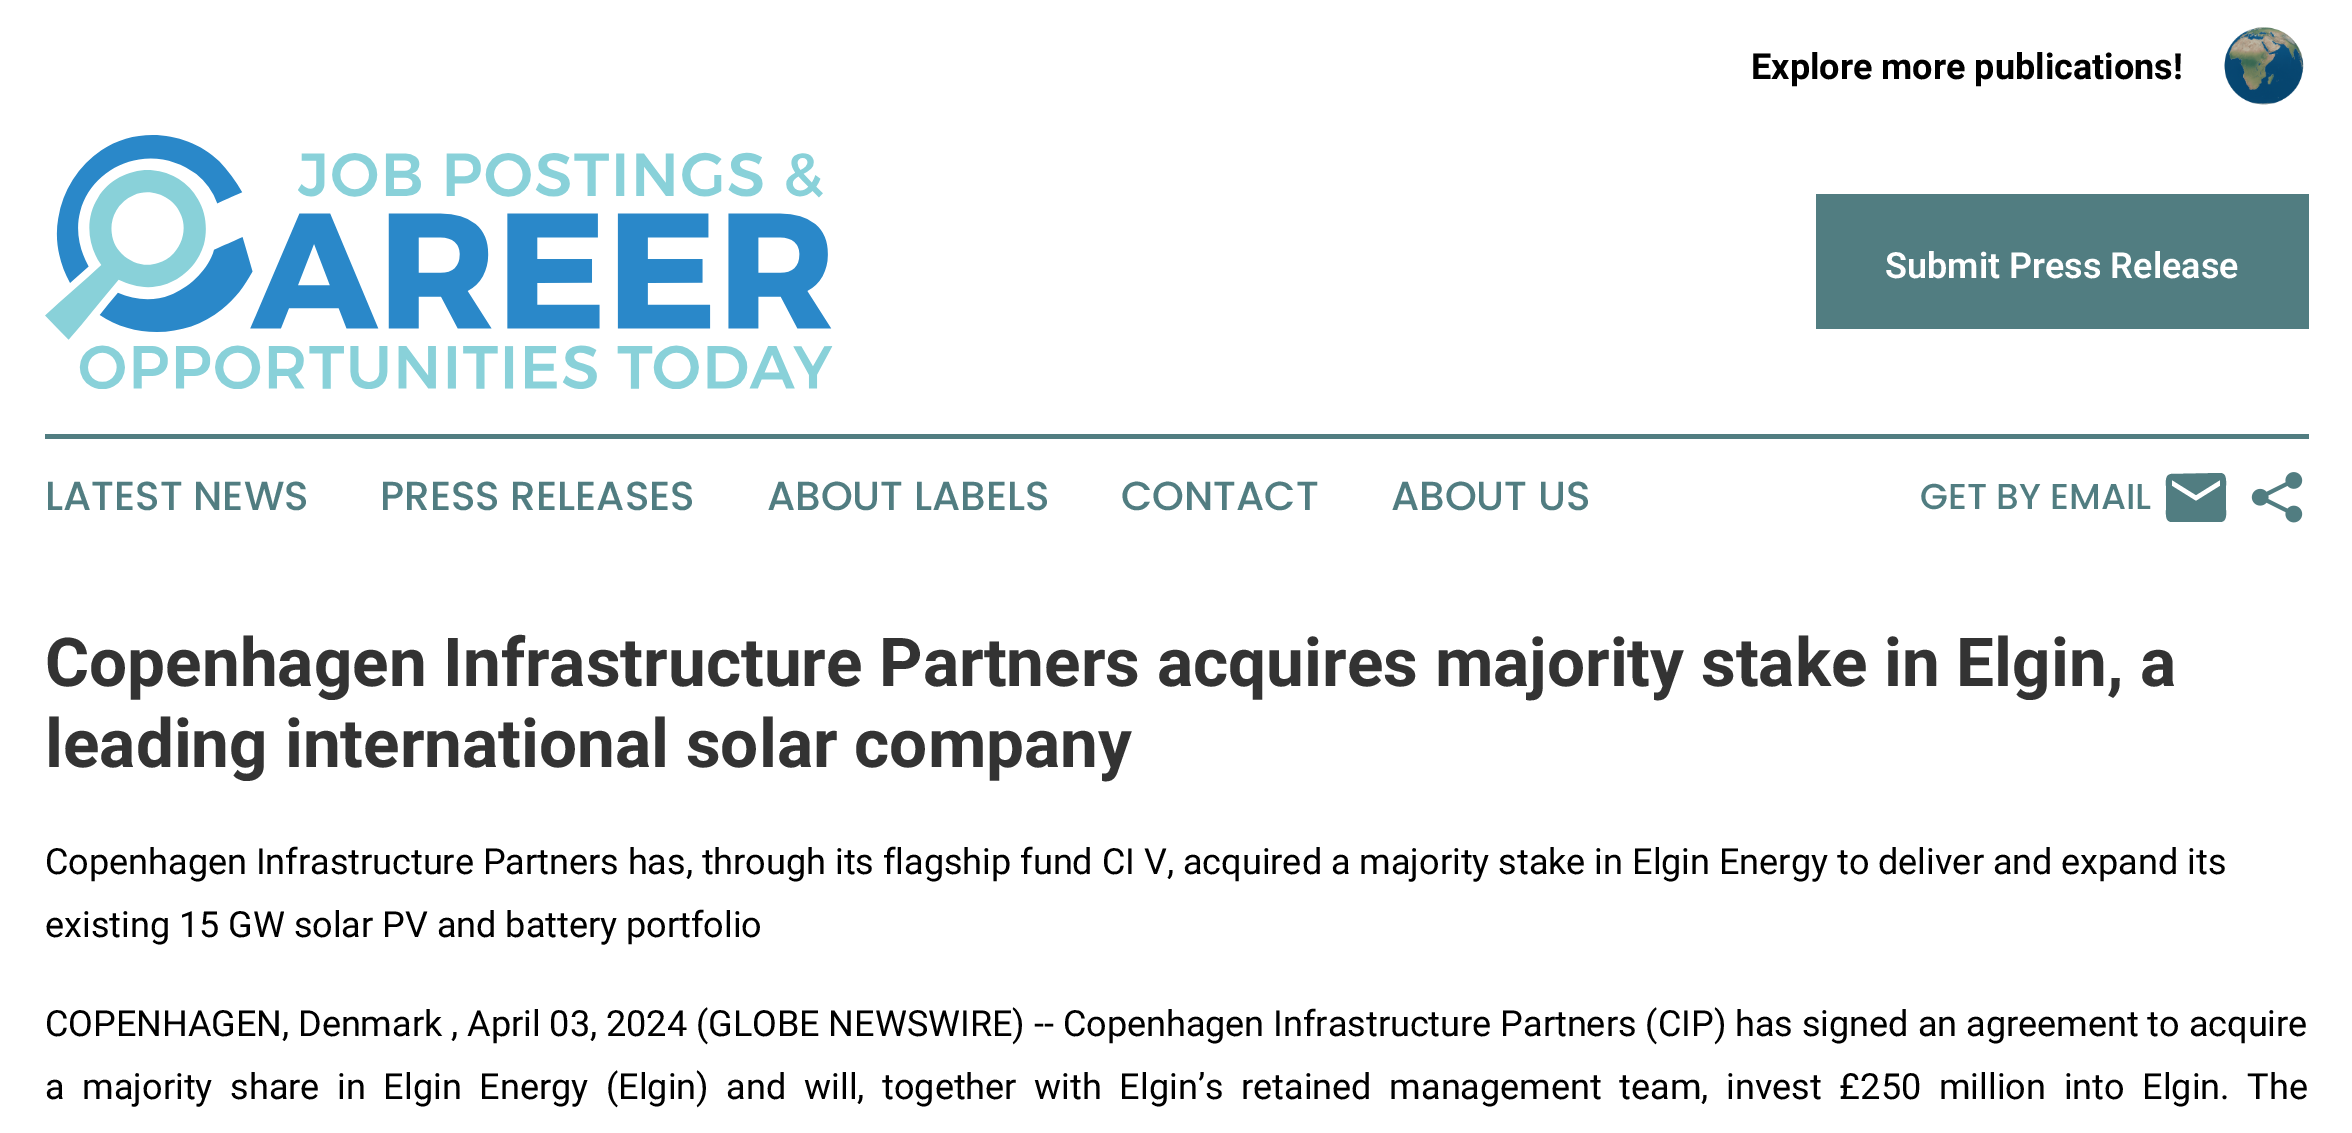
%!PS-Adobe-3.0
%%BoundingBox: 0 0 2352 1133
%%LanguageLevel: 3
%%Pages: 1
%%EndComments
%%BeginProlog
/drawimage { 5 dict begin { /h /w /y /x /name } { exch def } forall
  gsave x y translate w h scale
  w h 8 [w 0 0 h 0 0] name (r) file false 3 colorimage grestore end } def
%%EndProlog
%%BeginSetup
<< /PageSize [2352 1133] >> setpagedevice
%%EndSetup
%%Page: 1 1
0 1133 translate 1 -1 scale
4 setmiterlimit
1 setgray
0 0 2352 1133 rectfill
(images/1.raw) 2224 27 80 78 drawimage
(images/2.raw) 45 135 788 254 drawimage
0.318 0.49 0.506 setrgbcolor
1816 194 493 135 rectfill
45 434 2264 5 rectfill
newpath 2172 522 moveto 2165 522 2166 514 2166 510 curveto 2166 486 lineto 2166 481 2165 475 2171 474 curveto 2220 473 lineto 2227 473 2226 481 2226 486 curveto 2226 510 lineto 2226 514 2227 521 2221 522 curveto closepath 2196 501 moveto 2220 486 lineto 2220 480 lineto 2196 495 lineto 2172 480 lineto 2172 486 lineto closepath fill
(images/3.raw) 2251 472 52 51 drawimage
/Roboto-Bold [36 0 0 -36 0 0] selectfont
0 setgray
1751 79 moveto (Explore more publications!) show
/Roboto-SemiBold [36 0 0 -36 0 0] selectfont
1 setgray
1885 278 moveto (Submit Press Release) show
/Poppins-Medium [40.5 0 0 -40.5 0 0] selectfont
0.318 0.49 0.506 setrgbcolor
45 510 moveto (LATEST NEWS) show
380 510 moveto (PRESS RELEASES) show
767 510 moveto (ABOUT LABELS) show
1121 510 moveto (CONTACT) show
1391 510 moveto (ABOUT US) show
/Poppins-Medium [36 0 0 -36 0 0] selectfont
1920 509 moveto (GET BY EMAIL) show
/Roboto-Bold [67.5 0 0 -67.5 0 0] selectfont
0.2 setgray
45 686 moveto (Copenhagen Infrastructure Partners acquires majority stake in Elgin, a) show
45 767 moveto (leading international solar company) show
/Roboto-Regular [36 0 0 -36 0 0] selectfont
0 setgray
45 874 moveto (Copenhagen Infrastructure Partners has, through its flagship fund CI V, acquired a majority stake in Elgin Energy to deliver and expand its) show
45 937 moveto (existing 15 GW solar PV and battery portfolio) show
45 1036 moveto (COPENHAGEN, Denmark , April 03, 2024 \(GLOBE NEWSWIRE\) -- Copenhagen Infrastructure Partners \(CIP\) has signed an agreement to acquire) show
45 1099 moveto 8.8 0 32 (a majority share in Elgin Energy \(Elgin\) and will, together with Elgin’s retained management team, invest £250 million into Elgin. The) widthshow
showpage
%%EOF
